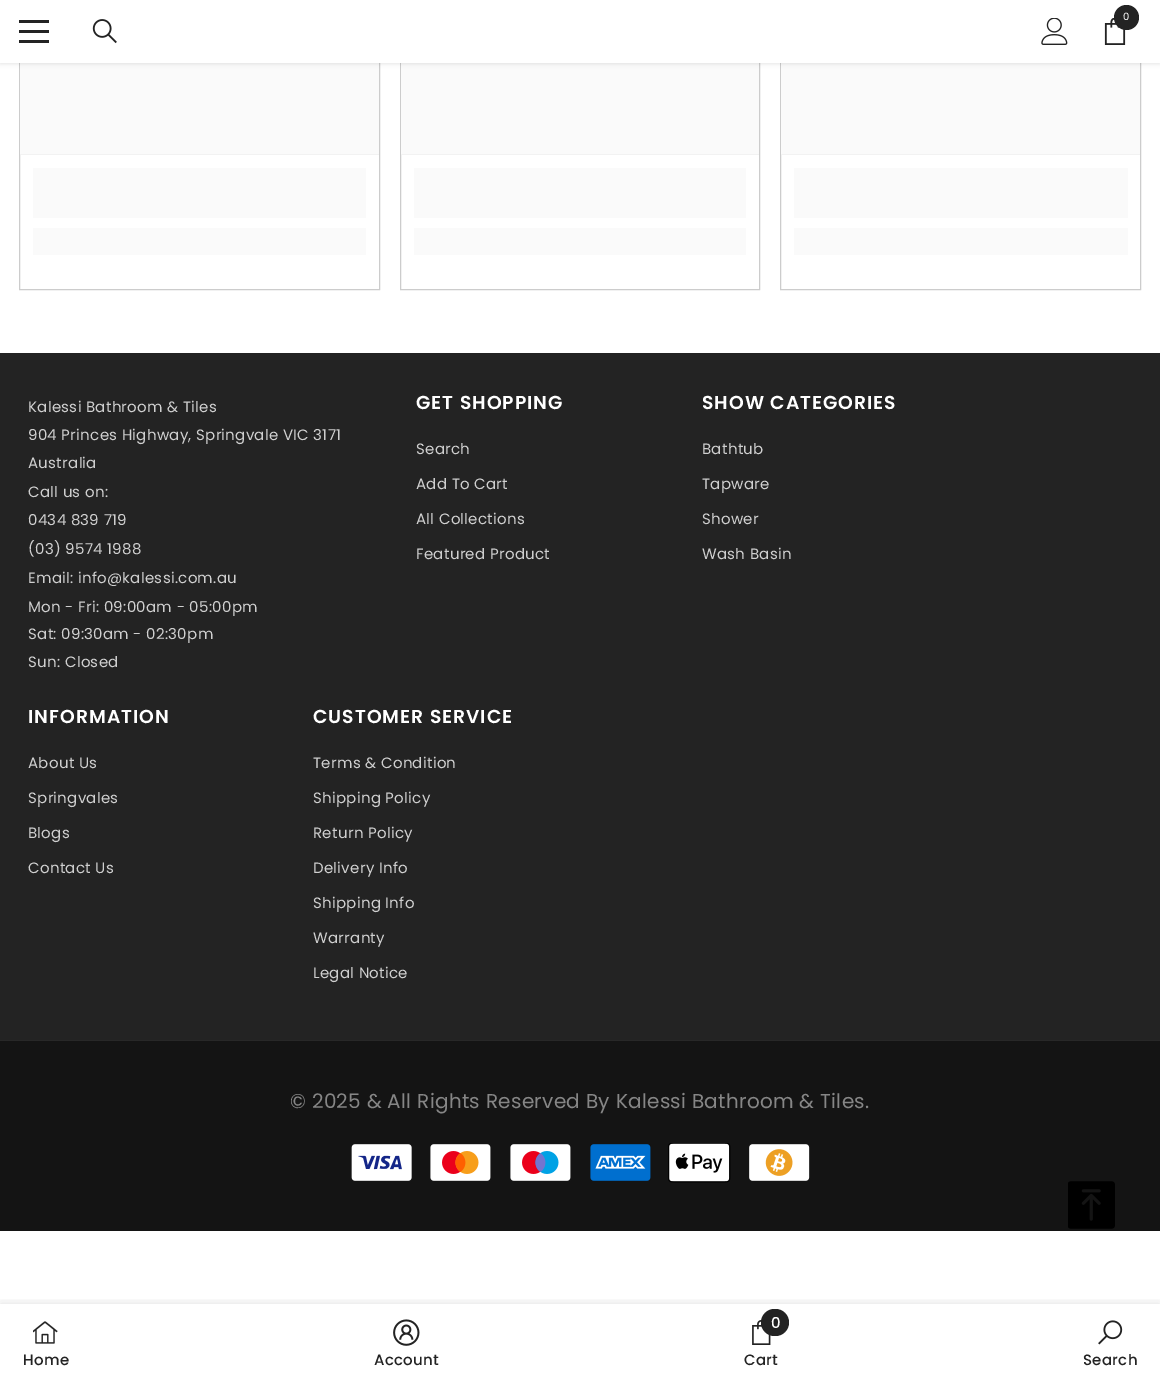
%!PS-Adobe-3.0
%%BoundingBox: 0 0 1160 1381
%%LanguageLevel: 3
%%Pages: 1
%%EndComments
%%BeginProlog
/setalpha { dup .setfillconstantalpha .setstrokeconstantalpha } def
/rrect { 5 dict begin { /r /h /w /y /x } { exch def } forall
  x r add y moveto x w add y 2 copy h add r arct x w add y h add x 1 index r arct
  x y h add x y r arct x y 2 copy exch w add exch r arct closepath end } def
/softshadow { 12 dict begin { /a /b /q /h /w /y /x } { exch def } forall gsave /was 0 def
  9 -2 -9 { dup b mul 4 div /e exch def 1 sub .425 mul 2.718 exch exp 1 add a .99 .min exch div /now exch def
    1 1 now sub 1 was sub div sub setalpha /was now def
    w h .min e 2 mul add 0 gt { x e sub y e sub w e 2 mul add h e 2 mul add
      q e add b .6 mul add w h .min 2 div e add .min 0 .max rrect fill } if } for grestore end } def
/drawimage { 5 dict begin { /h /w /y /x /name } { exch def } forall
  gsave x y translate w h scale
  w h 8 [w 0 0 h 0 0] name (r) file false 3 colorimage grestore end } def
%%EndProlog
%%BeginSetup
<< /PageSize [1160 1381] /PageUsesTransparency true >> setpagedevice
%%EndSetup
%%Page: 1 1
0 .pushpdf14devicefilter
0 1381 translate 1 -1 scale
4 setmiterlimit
1 setgray
0 0 1160 1381 rectfill
0.8 setgray
19.5 -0.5 360 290 rectstroke
gsave newpath 20 63 moveto 379 63 lineto 379 154 lineto 20 154 lineto closepath clip newpath
<< /ShadingType 2 /ColorSpace /DeviceRGB /Coords [-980 -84 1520 -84] /Extend [true true] /Function << /FunctionType 3 /Domain [0 1] /Functions [<< /FunctionType 2 /Domain [0 1] /C0 [0.98 0.98 0.98] /C1 [0.98 0.98 0.98] /N 1 >> << /FunctionType 2 /Domain [0 1] /C0 [0.98 0.98 0.98] /C1 [0.945 0.949 0.953] /N 1 >> << /FunctionType 2 /Domain [0 1] /C0 [0.945 0.949 0.953] /C1 [0.98 0.98 0.98] /N 1 >> << /FunctionType 2 /Domain [0 1] /C0 [0.98 0.98 0.98] /C1 [0.98 0.98 0.98] /N 1 >>] /Bounds [0.04 0.25 0.36] /Encode [0 1 0 1 0 1 0 1] >> >> shfill grestore
0.949 setgray
20 154 359 1 rectfill
gsave newpath 33 168 moveto 366 168 lineto 366 218 lineto 33 218 lineto closepath clip newpath
<< /ShadingType 2 /ColorSpace /DeviceRGB /Coords [-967 193 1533 192] /Extend [true true] /Function << /FunctionType 3 /Domain [0 1] /Functions [<< /FunctionType 2 /Domain [0 1] /C0 [0.98 0.98 0.98] /C1 [0.98 0.98 0.98] /N 1 >> << /FunctionType 2 /Domain [0 1] /C0 [0.98 0.98 0.98] /C1 [0.945 0.949 0.953] /N 1 >> << /FunctionType 2 /Domain [0 1] /C0 [0.945 0.949 0.953] /C1 [0.98 0.98 0.98] /N 1 >> << /FunctionType 2 /Domain [0 1] /C0 [0.98 0.98 0.98] /C1 [0.98 0.98 0.98] /N 1 >>] /Bounds [0.04 0.25 0.36] /Encode [0 1 0 1 0 1 0 1] >> >> shfill grestore
gsave newpath 33 228 moveto 366 228 lineto 366 255 lineto 33 255 lineto closepath clip newpath
<< /ShadingType 2 /ColorSpace /DeviceRGB /Coords [-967 241 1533 241] /Extend [true true] /Function << /FunctionType 3 /Domain [0 1] /Functions [<< /FunctionType 2 /Domain [0 1] /C0 [0.98 0.98 0.98] /C1 [0.98 0.98 0.98] /N 1 >> << /FunctionType 2 /Domain [0 1] /C0 [0.98 0.98 0.98] /C1 [0.945 0.949 0.953] /N 1 >> << /FunctionType 2 /Domain [0 1] /C0 [0.945 0.949 0.953] /C1 [0.98 0.98 0.98] /N 1 >> << /FunctionType 2 /Domain [0 1] /C0 [0.98 0.98 0.98] /C1 [0.98 0.98 0.98] /N 1 >>] /Bounds [0.04 0.25 0.36] /Encode [0 1 0 1 0 1 0 1] >> >> shfill grestore
0.8 setgray
400.5 -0.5 359 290 rectstroke
gsave newpath 401 63 moveto 759 63 lineto 759 154 lineto 401 154 lineto closepath clip newpath
<< /ShadingType 2 /ColorSpace /DeviceRGB /Coords [-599 -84 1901 -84] /Extend [true true] /Function << /FunctionType 3 /Domain [0 1] /Functions [<< /FunctionType 2 /Domain [0 1] /C0 [0.98 0.98 0.98] /C1 [0.98 0.98 0.98] /N 1 >> << /FunctionType 2 /Domain [0 1] /C0 [0.98 0.98 0.98] /C1 [0.945 0.949 0.953] /N 1 >> << /FunctionType 2 /Domain [0 1] /C0 [0.945 0.949 0.953] /C1 [0.98 0.98 0.98] /N 1 >> << /FunctionType 2 /Domain [0 1] /C0 [0.98 0.98 0.98] /C1 [0.98 0.98 0.98] /N 1 >>] /Bounds [0.04 0.25 0.36] /Encode [0 1 0 1 0 1 0 1] >> >> shfill grestore
0.949 setgray
401 154 358 1 rectfill
gsave newpath 414 168 moveto 746 168 lineto 746 218 lineto 414 218 lineto closepath clip newpath
<< /ShadingType 2 /ColorSpace /DeviceRGB /Coords [-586 193 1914 192] /Extend [true true] /Function << /FunctionType 3 /Domain [0 1] /Functions [<< /FunctionType 2 /Domain [0 1] /C0 [0.98 0.98 0.98] /C1 [0.98 0.98 0.98] /N 1 >> << /FunctionType 2 /Domain [0 1] /C0 [0.98 0.98 0.98] /C1 [0.945 0.949 0.953] /N 1 >> << /FunctionType 2 /Domain [0 1] /C0 [0.945 0.949 0.953] /C1 [0.98 0.98 0.98] /N 1 >> << /FunctionType 2 /Domain [0 1] /C0 [0.98 0.98 0.98] /C1 [0.98 0.98 0.98] /N 1 >>] /Bounds [0.04 0.25 0.36] /Encode [0 1 0 1 0 1 0 1] >> >> shfill grestore
gsave newpath 414 228 moveto 746 228 lineto 746 255 lineto 414 255 lineto closepath clip newpath
<< /ShadingType 2 /ColorSpace /DeviceRGB /Coords [-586 241 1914 241] /Extend [true true] /Function << /FunctionType 3 /Domain [0 1] /Functions [<< /FunctionType 2 /Domain [0 1] /C0 [0.98 0.98 0.98] /C1 [0.98 0.98 0.98] /N 1 >> << /FunctionType 2 /Domain [0 1] /C0 [0.98 0.98 0.98] /C1 [0.945 0.949 0.953] /N 1 >> << /FunctionType 2 /Domain [0 1] /C0 [0.945 0.949 0.953] /C1 [0.98 0.98 0.98] /N 1 >> << /FunctionType 2 /Domain [0 1] /C0 [0.98 0.98 0.98] /C1 [0.98 0.98 0.98] /N 1 >>] /Bounds [0.04 0.25 0.36] /Encode [0 1 0 1 0 1 0 1] >> >> shfill grestore
0.8 setgray
780.5 -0.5 360 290 rectstroke
gsave newpath 781 63 moveto 1140 63 lineto 1140 154 lineto 781 154 lineto closepath clip newpath
<< /ShadingType 2 /ColorSpace /DeviceRGB /Coords [-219 -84 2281 -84] /Extend [true true] /Function << /FunctionType 3 /Domain [0 1] /Functions [<< /FunctionType 2 /Domain [0 1] /C0 [0.98 0.98 0.98] /C1 [0.98 0.98 0.98] /N 1 >> << /FunctionType 2 /Domain [0 1] /C0 [0.98 0.98 0.98] /C1 [0.945 0.949 0.953] /N 1 >> << /FunctionType 2 /Domain [0 1] /C0 [0.945 0.949 0.953] /C1 [0.98 0.98 0.98] /N 1 >> << /FunctionType 2 /Domain [0 1] /C0 [0.98 0.98 0.98] /C1 [0.98 0.98 0.98] /N 1 >>] /Bounds [0.04 0.25 0.36] /Encode [0 1 0 1 0 1 0 1] >> >> shfill grestore
0.949 setgray
781 154 359 1 rectfill
gsave newpath 794 168 moveto 1128 168 lineto 1128 218 lineto 794 218 lineto closepath clip newpath
<< /ShadingType 2 /ColorSpace /DeviceRGB /Coords [-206 193 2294 192] /Extend [true true] /Function << /FunctionType 3 /Domain [0 1] /Functions [<< /FunctionType 2 /Domain [0 1] /C0 [0.98 0.98 0.98] /C1 [0.98 0.98 0.98] /N 1 >> << /FunctionType 2 /Domain [0 1] /C0 [0.98 0.98 0.98] /C1 [0.945 0.949 0.953] /N 1 >> << /FunctionType 2 /Domain [0 1] /C0 [0.945 0.949 0.953] /C1 [0.98 0.98 0.98] /N 1 >> << /FunctionType 2 /Domain [0 1] /C0 [0.98 0.98 0.98] /C1 [0.98 0.98 0.98] /N 1 >>] /Bounds [0.04 0.25 0.36] /Encode [0 1 0 1 0 1 0 1] >> >> shfill grestore
gsave newpath 794 228 moveto 1128 228 lineto 1128 255 lineto 794 255 lineto closepath clip newpath
<< /ShadingType 2 /ColorSpace /DeviceRGB /Coords [-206 241 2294 241] /Extend [true true] /Function << /FunctionType 3 /Domain [0 1] /Functions [<< /FunctionType 2 /Domain [0 1] /C0 [0.98 0.98 0.98] /C1 [0.98 0.98 0.98] /N 1 >> << /FunctionType 2 /Domain [0 1] /C0 [0.98 0.98 0.98] /C1 [0.945 0.949 0.953] /N 1 >> << /FunctionType 2 /Domain [0 1] /C0 [0.945 0.949 0.953] /C1 [0.98 0.98 0.98] /N 1 >> << /FunctionType 2 /Domain [0 1] /C0 [0.98 0.98 0.98] /C1 [0.98 0.98 0.98] /N 1 >>] /Bounds [0.04 0.25 0.36] /Encode [0 1 0 1 0 1 0 1] >> >> shfill grestore
0 setgray
0 1 1160 63 0 2 0.1 softshadow
1 setgray
0 0 1160 63 rectfill
(images/1.raw) 1104 18 22 27 drawimage
0.137 setgray
newpath 1126.5 17.5 12.5 0 360 arc closepath fill
19 30 30 3 rectfill
19 20 30 3 rectfill
19 40 30 3 rectfill
(images/2.raw) 92 19 25 25 drawimage
(images/3.raw) 1041 18 27 27 drawimage
0 353 1160 687 rectfill
0.078 setgray
0 1041 1160 190 rectfill
0.157 setgray
0 1040 1160 1 rectfill
(images/4.raw) 351 1144 61 37 drawimage
(images/5.raw) 430 1144 61 37 drawimage
(images/6.raw) 510 1144 61 37 drawimage
(images/7.raw) 590 1144 61 37 drawimage
(images/8.raw) 668 1143 63 40 drawimage
(images/9.raw) 749 1144 61 37 drawimage
gsave
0 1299 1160 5 rectclip
0 setgray
0 1304 1160 77 0 5.5 0.12 softshadow
grestore
(images/10.raw) 33 1321 25 23 drawimage
(images/11.raw) 393 1319 27 27 drawimage
(images/12.raw) 752 1320 19 25 drawimage
0.137 setgray
761 1309 28 27 13.5 rrect fill
(images/13.raw) 1098 1320 25 25 drawimage
(images/14.raw) 1068 1181 47 48 drawimage
/Poppins-Regular [10 0 0 -10 0 0] selectfont
1 setgray
1123 20 moveto (0) show
/Poppins-Regular [15 0 0 -15 0 0] selectfont
0.812 setgray
28 412 moveto 0.3 0 (Kalessi Bathroom & Tiles) ashow
28 440 moveto 0.3 0 (904 Princes Highway, Springvale VIC 3171) ashow
28 468 moveto 0.3 0 (Australia) ashow
28 497 moveto 0.3 0 (Call us on:) ashow
28 525 moveto 0.3 0 (0434 839 719) ashow
28 554 moveto 0.3 0 (\(03\) 9574 1988) ashow
28 583 moveto 0.3 0 (Email: info@kalessi.com.au) ashow
28 612 moveto 0.3 0 (Mon - Fri: 09:00am - 05:00pm) ashow
28 639 moveto 0.3 0 (Sat: 09:30am - 02:30pm) ashow
28 667 moveto 0.3 0 (Sun: Closed) ashow
/Poppins-SemiBold [18.75 0 0 -18.75 0 0] selectfont
1 setgray
416 409 moveto 1 0 (GET SHOPPING) ashow
/Poppins-Regular [15 0 0 -15 0 0] selectfont
0.812 setgray
416 454 moveto 0.3 0 (Search) ashow
416 489 moveto 0.3 0 (Add To Cart) ashow
416 524 moveto 0.3 0 (All Collections) ashow
416 559 moveto 0.3 0 (Featured Product) ashow
/Poppins-SemiBold [18.75 0 0 -18.75 0 0] selectfont
1 setgray
702 409 moveto 1 0 (SHOW CATEGORIES) ashow
/Poppins-Regular [15 0 0 -15 0 0] selectfont
0.812 setgray
702 454 moveto 0.3 0 (Bathtub) ashow
702 489 moveto 0.3 0 (Tapware) ashow
702 524 moveto 0.3 0 (Shower) ashow
702 559 moveto 0.3 0 (Wash Basin) ashow
/Poppins-SemiBold [18.75 0 0 -18.75 0 0] selectfont
1 setgray
28 723 moveto 1 0 (INFORMATION) ashow
/Poppins-Regular [15 0 0 -15 0 0] selectfont
0.812 setgray
28 768 moveto 0.3 0 (About Us) ashow
28 803 moveto 0.3 0 (Springvales) ashow
28 838 moveto 0.3 0 (Blogs) ashow
28 873 moveto 0.3 0 (Contact Us) ashow
/Poppins-SemiBold [18.75 0 0 -18.75 0 0] selectfont
1 setgray
313 723 moveto 1 0 (CUSTOMER SERVICE) ashow
/Poppins-Regular [15 0 0 -15 0 0] selectfont
0.812 setgray
313 768 moveto 0.3 0 (Terms & Condition) ashow
313 803 moveto 0.3 0 (Shipping Policy) ashow
313 838 moveto 0.3 0 (Return Policy) ashow
313 873 moveto 0.3 0 (Delivery Info) ashow
313 908 moveto 0.3 0 (Shipping Info) ashow
313 943 moveto 0.3 0 (Warranty) ashow
313 978 moveto 0.3 0 (Legal Notice) ashow
/Poppins-Regular [20 0 0 -20 0 0] selectfont
0.525 setgray
290 1108 moveto 0.3 0 (© 2025 & All Rights Reserved By Kalessi Bathroom & Tiles.) ashow
/Poppins-Medium [15 0 0 -15 0 0] selectfont
0.137 setgray
23 1365 moveto 0.3 0 (Home) ashow
374 1365 moveto 0.3 0 (Account) ashow
1 setgray
771 1328 moveto (0) show
0.137 setgray
744 1365 moveto 0.3 0 (Cart) ashow
1083 1365 moveto 0.3 0 (Search) ashow
.poppdf14devicefilter showpage
%%EOF
